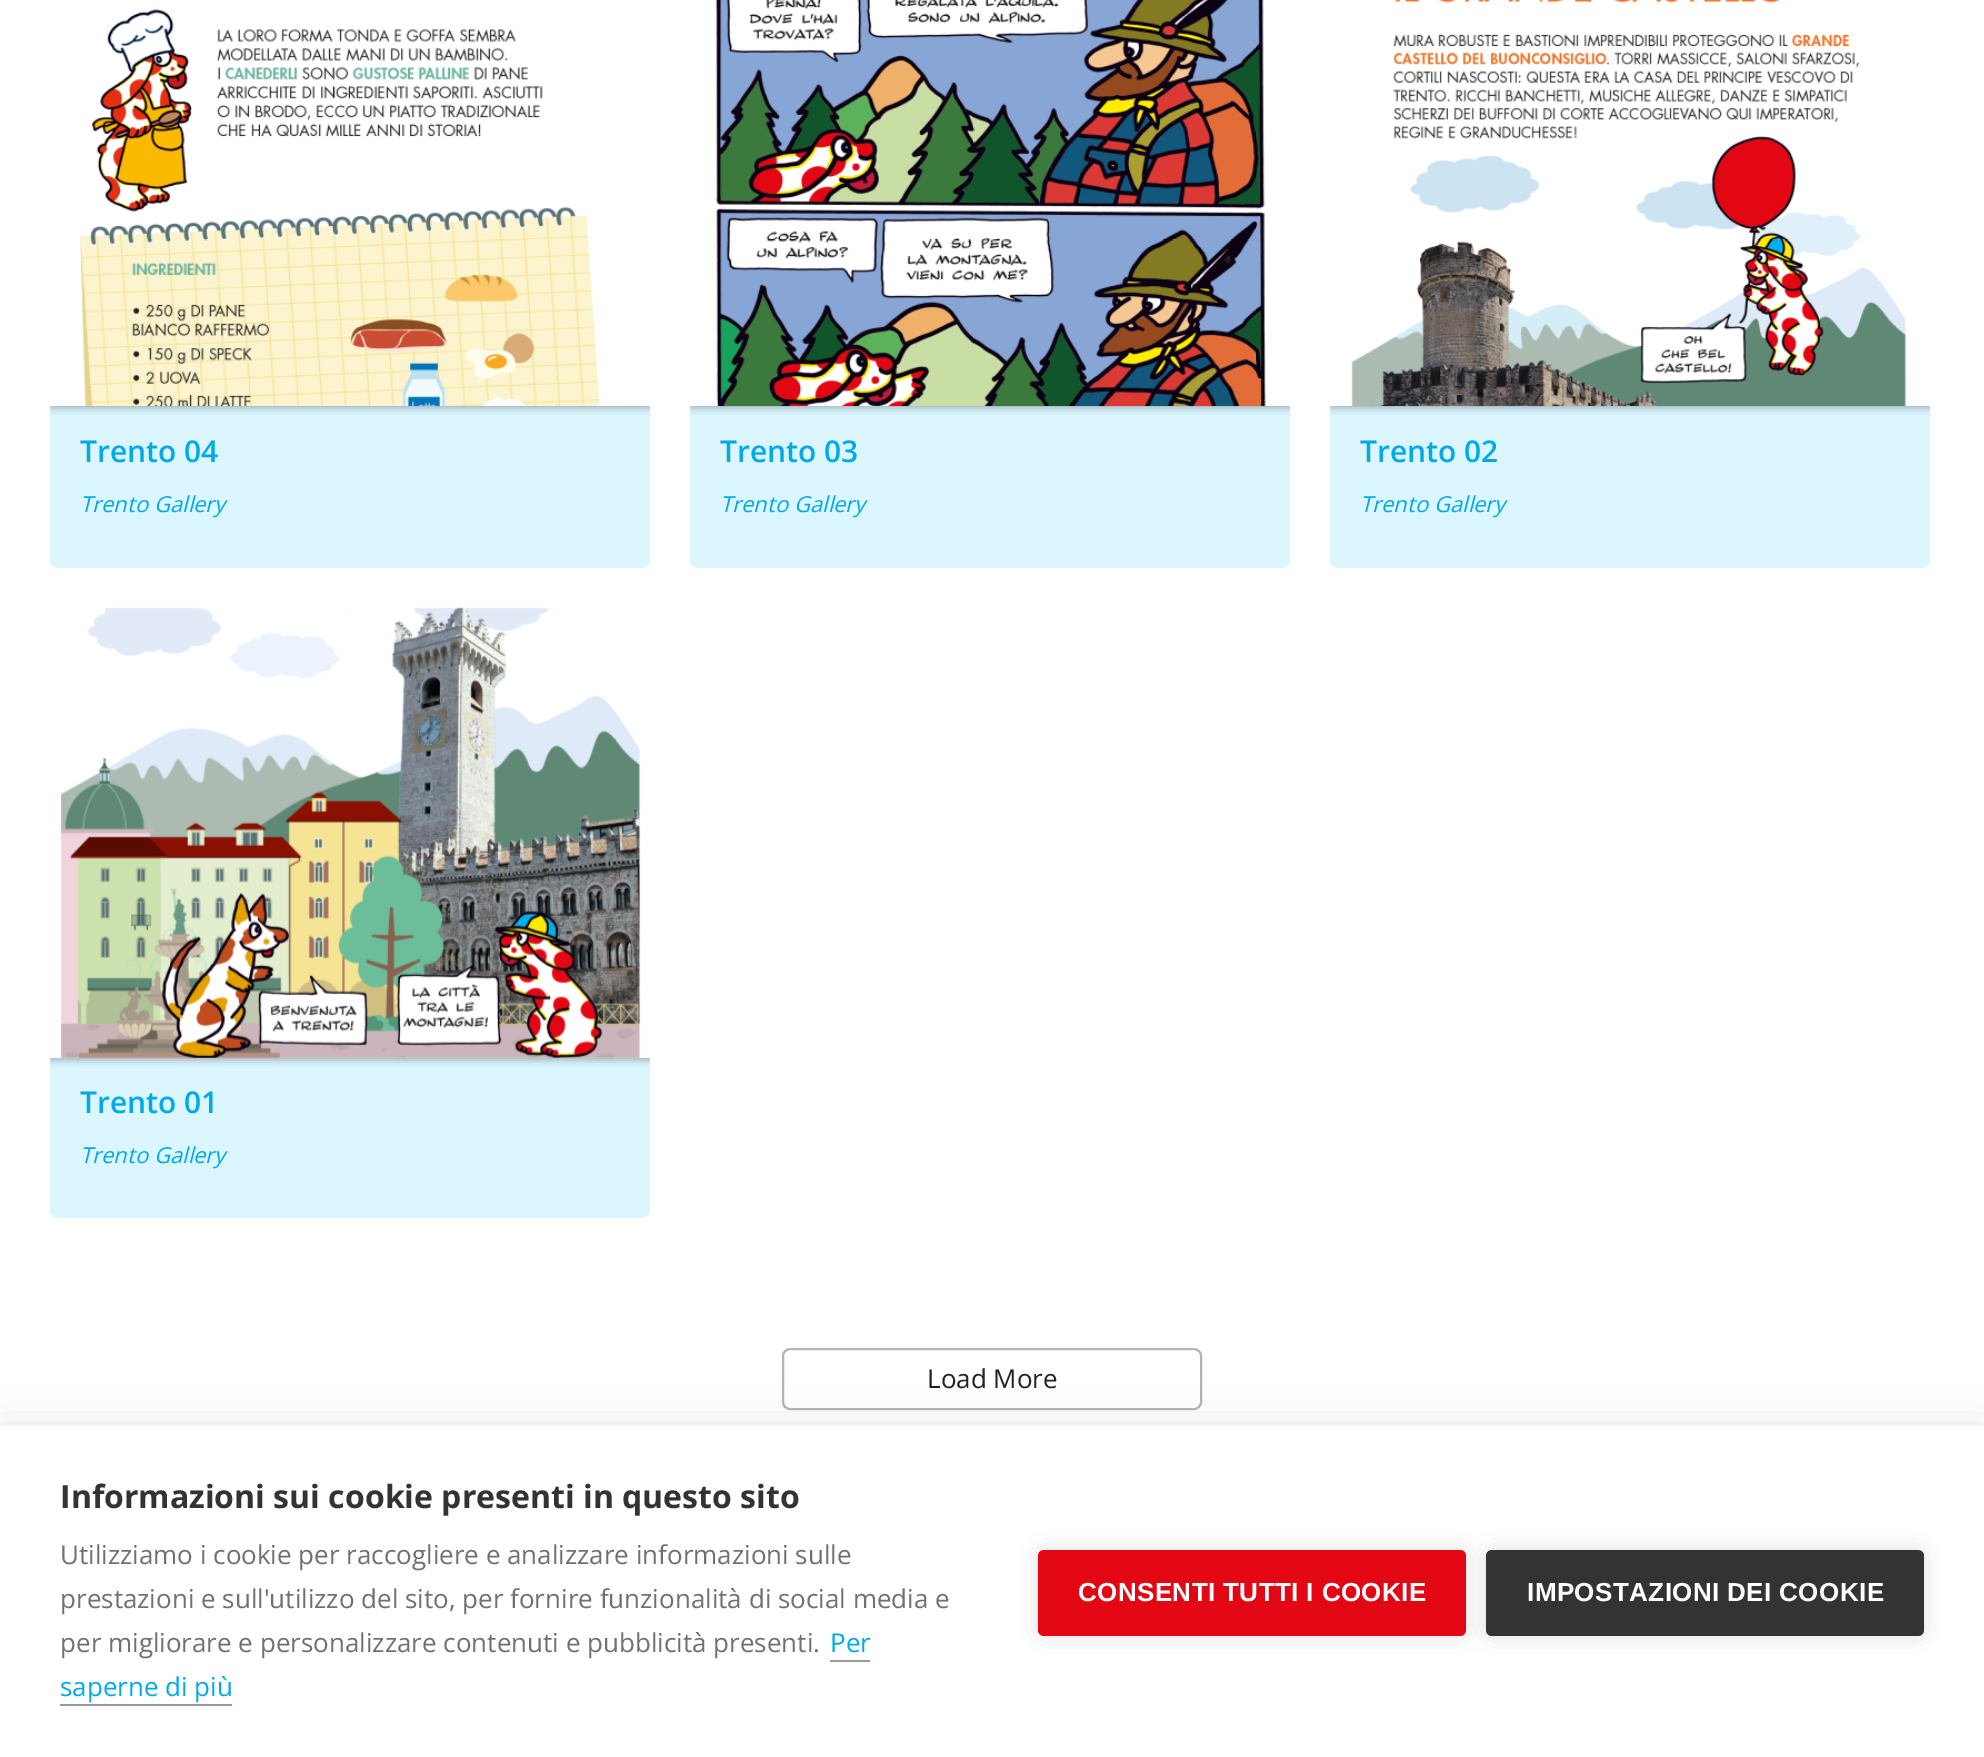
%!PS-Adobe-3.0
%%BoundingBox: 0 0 1984 1757
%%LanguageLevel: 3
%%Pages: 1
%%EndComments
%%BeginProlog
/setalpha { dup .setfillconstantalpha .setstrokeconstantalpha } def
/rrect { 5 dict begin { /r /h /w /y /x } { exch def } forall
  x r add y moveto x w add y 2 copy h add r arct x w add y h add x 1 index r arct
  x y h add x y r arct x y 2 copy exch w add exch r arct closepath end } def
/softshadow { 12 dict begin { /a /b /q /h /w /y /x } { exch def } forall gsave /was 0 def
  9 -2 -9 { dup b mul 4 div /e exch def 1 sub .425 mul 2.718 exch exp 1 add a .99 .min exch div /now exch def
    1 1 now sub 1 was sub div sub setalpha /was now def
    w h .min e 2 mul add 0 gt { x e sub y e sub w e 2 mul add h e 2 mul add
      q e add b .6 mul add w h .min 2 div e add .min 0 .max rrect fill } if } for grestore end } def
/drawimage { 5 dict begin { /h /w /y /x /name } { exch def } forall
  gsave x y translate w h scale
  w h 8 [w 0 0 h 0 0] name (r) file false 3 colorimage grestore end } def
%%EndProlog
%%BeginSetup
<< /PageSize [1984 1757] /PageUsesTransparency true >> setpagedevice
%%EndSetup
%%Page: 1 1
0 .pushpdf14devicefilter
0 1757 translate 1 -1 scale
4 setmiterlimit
1 setgray
0 0 1984 1757 rectfill
(images/1.raw) 80 9 520 397 drawimage
0.859 0.965 1 setrgbcolor
newpath 50 406 moveto 650 406 lineto 650 560 lineto 650 564.5 646.5 568 642 568 curveto 58 568 lineto 53.5 568 50 564.5 50 560 curveto closepath fill
gsave
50 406 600 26 rectclip
0 setgray
50 348 600 60 0 4 0.3 softshadow
grestore
(images/2.raw) 715 0 551 406 drawimage
newpath 690 406 moveto 1290 406 lineto 1290 560 lineto 1290 564.5 1286.5 568 1282 568 curveto 698 568 lineto 693.5 568 690 564.5 690 560 curveto closepath fill
gsave
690 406 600 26 rectclip
0 setgray
690 348 600 60 0 4 0.3 softshadow
grestore
(images/3.raw) 1351 0 555 406 drawimage
newpath 1330 406 moveto 1930 406 lineto 1930 560 lineto 1930 564.5 1926.5 568 1922 568 curveto 1338 568 lineto 1333.5 568 1330 564.5 1330 560 curveto closepath fill
gsave
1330 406 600 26 rectclip
0 setgray
1330 348 600 60 0 4 0.3 softshadow
grestore
(images/4.raw) 60 607 581 451 drawimage
newpath 50 1058 moveto 650 1058 lineto 650 1210 lineto 650 1214.5 646.5 1218 642 1218 curveto 58 1218 lineto 53.5 1218 50 1214.5 50 1210 curveto closepath fill
gsave
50 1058 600 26 rectclip
0 setgray
50 1000 600 60 0 4 0.3 softshadow
grestore
0.706 setgray
2 setlinewidth
783 1349 418 60 7 rrect stroke
0 setgray
0 1426 1984 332 0 20 0.1 softshadow
1 setgray
0 1426 1984 331 rectfill
0.6 setgray
830 1660 40 2 rectfill
60 1704 172 2 rectfill
0 setgray
1038 1550 428 86 6 10 0.12 softshadow
0.89 0.024 0.075 setrgbcolor
1038 1550 428 86 6 rrect fill
0 setgray
1486 1550 438 86 6 10 0.12 softshadow
0.2 setgray
1486 1550 438 86 6 rrect fill
/OpenSans-SemiBold [30 0 0 -30 0 0] selectfont
0 0.667 0.91 setrgbcolor
80 462 moveto (Trento 04) show
/OpenSans-Italic [22 0 0 -22 0 0] selectfont
80 512 moveto (Trento Gallery) show
/OpenSans-SemiBold [30 0 0 -30 0 0] selectfont
720 462 moveto (Trento 03) show
/OpenSans-Italic [22 0 0 -22 0 0] selectfont
720 512 moveto (Trento Gallery) show
/OpenSans-SemiBold [30 0 0 -30 0 0] selectfont
1360 462 moveto (Trento 02) show
/OpenSans-Italic [22 0 0 -22 0 0] selectfont
1360 512 moveto (Trento Gallery) show
/OpenSans-SemiBold [30 0 0 -30 0 0] selectfont
80 1113 moveto (Trento 01) show
/OpenSans-Italic [22 0 0 -22 0 0] selectfont
80 1163 moveto (Trento Gallery) show
/OpenSans-Regular [26 0 0 -26 0 0] selectfont
0.133 setgray
927 1388 moveto (Load More) show
/OpenSans-Bold [32 0 0 -32 0 0] selectfont
0.2 setgray
60 1508 moveto (Informazioni sui cookie presenti in questo sito) show
/OpenSans-Regular [26 0 0 -26 0 0] selectfont
0.439 setgray
60 1564 moveto (Utilizziamo i cookie per raccogliere e analizzare informazioni sulle) show
60 1608 moveto (prestazioni e sull'utilizzo del sito, per fornire funzionalità di social media e) show
60 1652 moveto (per migliorare e personalizzare contenuti e pubblicità presenti.) show
0 0.667 0.91 setrgbcolor
830 1652 moveto (Per) show
60 1696 moveto (saperne di più) show
/LiberationSans-Bold [26 0 0 -26 0 0] selectfont
1 setgray
1078 1601 moveto 0.4 0 (CONSENTI TUTTI I COOKIE) ashow
1527 1601 moveto 0.4 0 (IMPOSTAZIONI DEI COOKIE) ashow
.poppdf14devicefilter showpage
%%EOF
